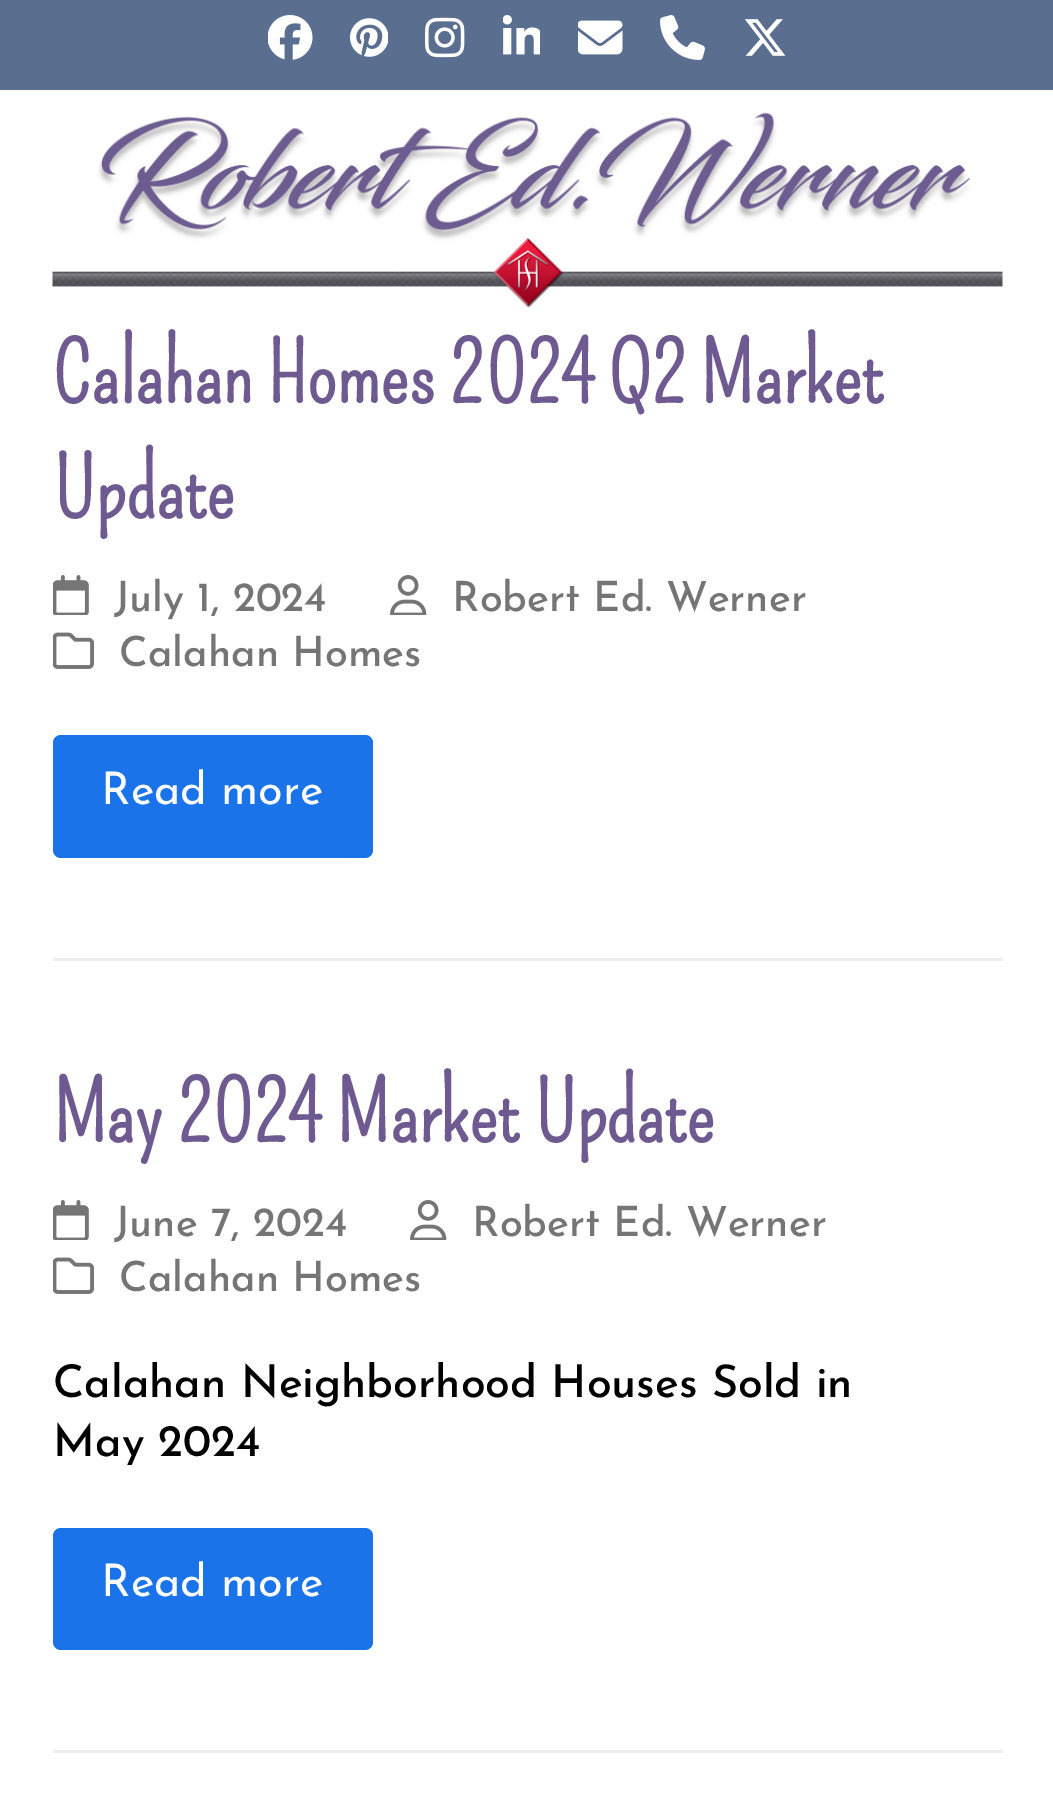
%!PS-Adobe-3.0
%%BoundingBox: 0 0 1053 1800
%%LanguageLevel: 3
%%Pages: 1
%%EndComments
%%BeginProlog
/rrect { 5 dict begin { /r /h /w /y /x } { exch def } forall
  x r add y moveto x w add y 2 copy h add r arct x w add y h add x 1 index r arct
  x y h add x y r arct x y 2 copy exch w add exch r arct closepath end } def
/drawimage { 5 dict begin { /h /w /y /x /name } { exch def } forall
  gsave x y translate w h scale
  w h 8 [w 0 0 h 0 0] name (r) file false 3 colorimage grestore end } def
%%EndProlog
%%BeginSetup
<< /PageSize [1053 1800] >> setpagedevice
%%EndSetup
%%Page: 1 1
0 1800 translate 1 -1 scale
4 setmiterlimit
1 setgray
0 0 1053 1800 rectfill
0.353 0.431 0.565 setrgbcolor
0 0 1053 90 rectfill
(images/1.raw) 268 15 45 45 drawimage
(images/2.raw) 350 18 38 39 drawimage
(images/3.raw) 425 17 40 41 drawimage
(images/4.raw) 503 15 37 40 drawimage
(images/5.raw) 578 20 45 35 drawimage
(images/6.raw) 660 15 45 45 drawimage
(images/7.raw) 745 19 41 37 drawimage
(images/8.raw) 52 112 951 196 drawimage
(images/9.raw) 53 575 36 40 drawimage
(images/10.raw) 390 575 37 40 drawimage
(images/11.raw) 53 632 41 37 drawimage
0.102 0.451 0.91 setrgbcolor
53 735 320 123 8 rrect fill
0.933 setgray
53 958 950 3 rectfill
(images/9.raw) 53 1200 36 40 drawimage
(images/10.raw) 410 1200 37 40 drawimage
(images/11.raw) 53 1257 41 37 drawimage
0.102 0.451 0.91 setrgbcolor
53 1528 320 122 8 rrect fill
0.933 setgray
53 1750 950 3 rectfill
/Pompiere-Bold [83 0 0 -83 0 0] selectfont
0.431 0.353 0.565 setrgbcolor
53 403 moveto (Calahan Homes 2024 Q2 Market) show
53 518 moveto (Update) show
/JosefinSans-Medium [41.5 0 0 -41.5 0 0] selectfont
0.459 setgray
114 611 moveto (July 1, 2024) show
452 611 moveto (Robert Ed. Werner) show
119 666 moveto (Calahan Homes) show
/JosefinSans-Regular [45 0 0 -45 0 0] selectfont
1 setgray
101 804 moveto (Read more) show
/Pompiere-Bold [83 0 0 -83 0 0] selectfont
0.431 0.353 0.565 setrgbcolor
53 1142 moveto (May 2024 Market Update) show
/JosefinSans-Medium [41.5 0 0 -41.5 0 0] selectfont
0.459 setgray
114 1236 moveto (June 7, 2024) show
472 1236 moveto (Robert Ed. Werner) show
119 1291 moveto (Calahan Homes) show
/JosefinSans-Medium [45 0 0 -45 0 0] selectfont
0 setgray
53 1397 moveto (Calahan Neighborhood Houses Sold in) show
53 1456 moveto (May 2024) show
/JosefinSans-Regular [45 0 0 -45 0 0] selectfont
1 setgray
101 1596 moveto (Read more) show
showpage
%%EOF
